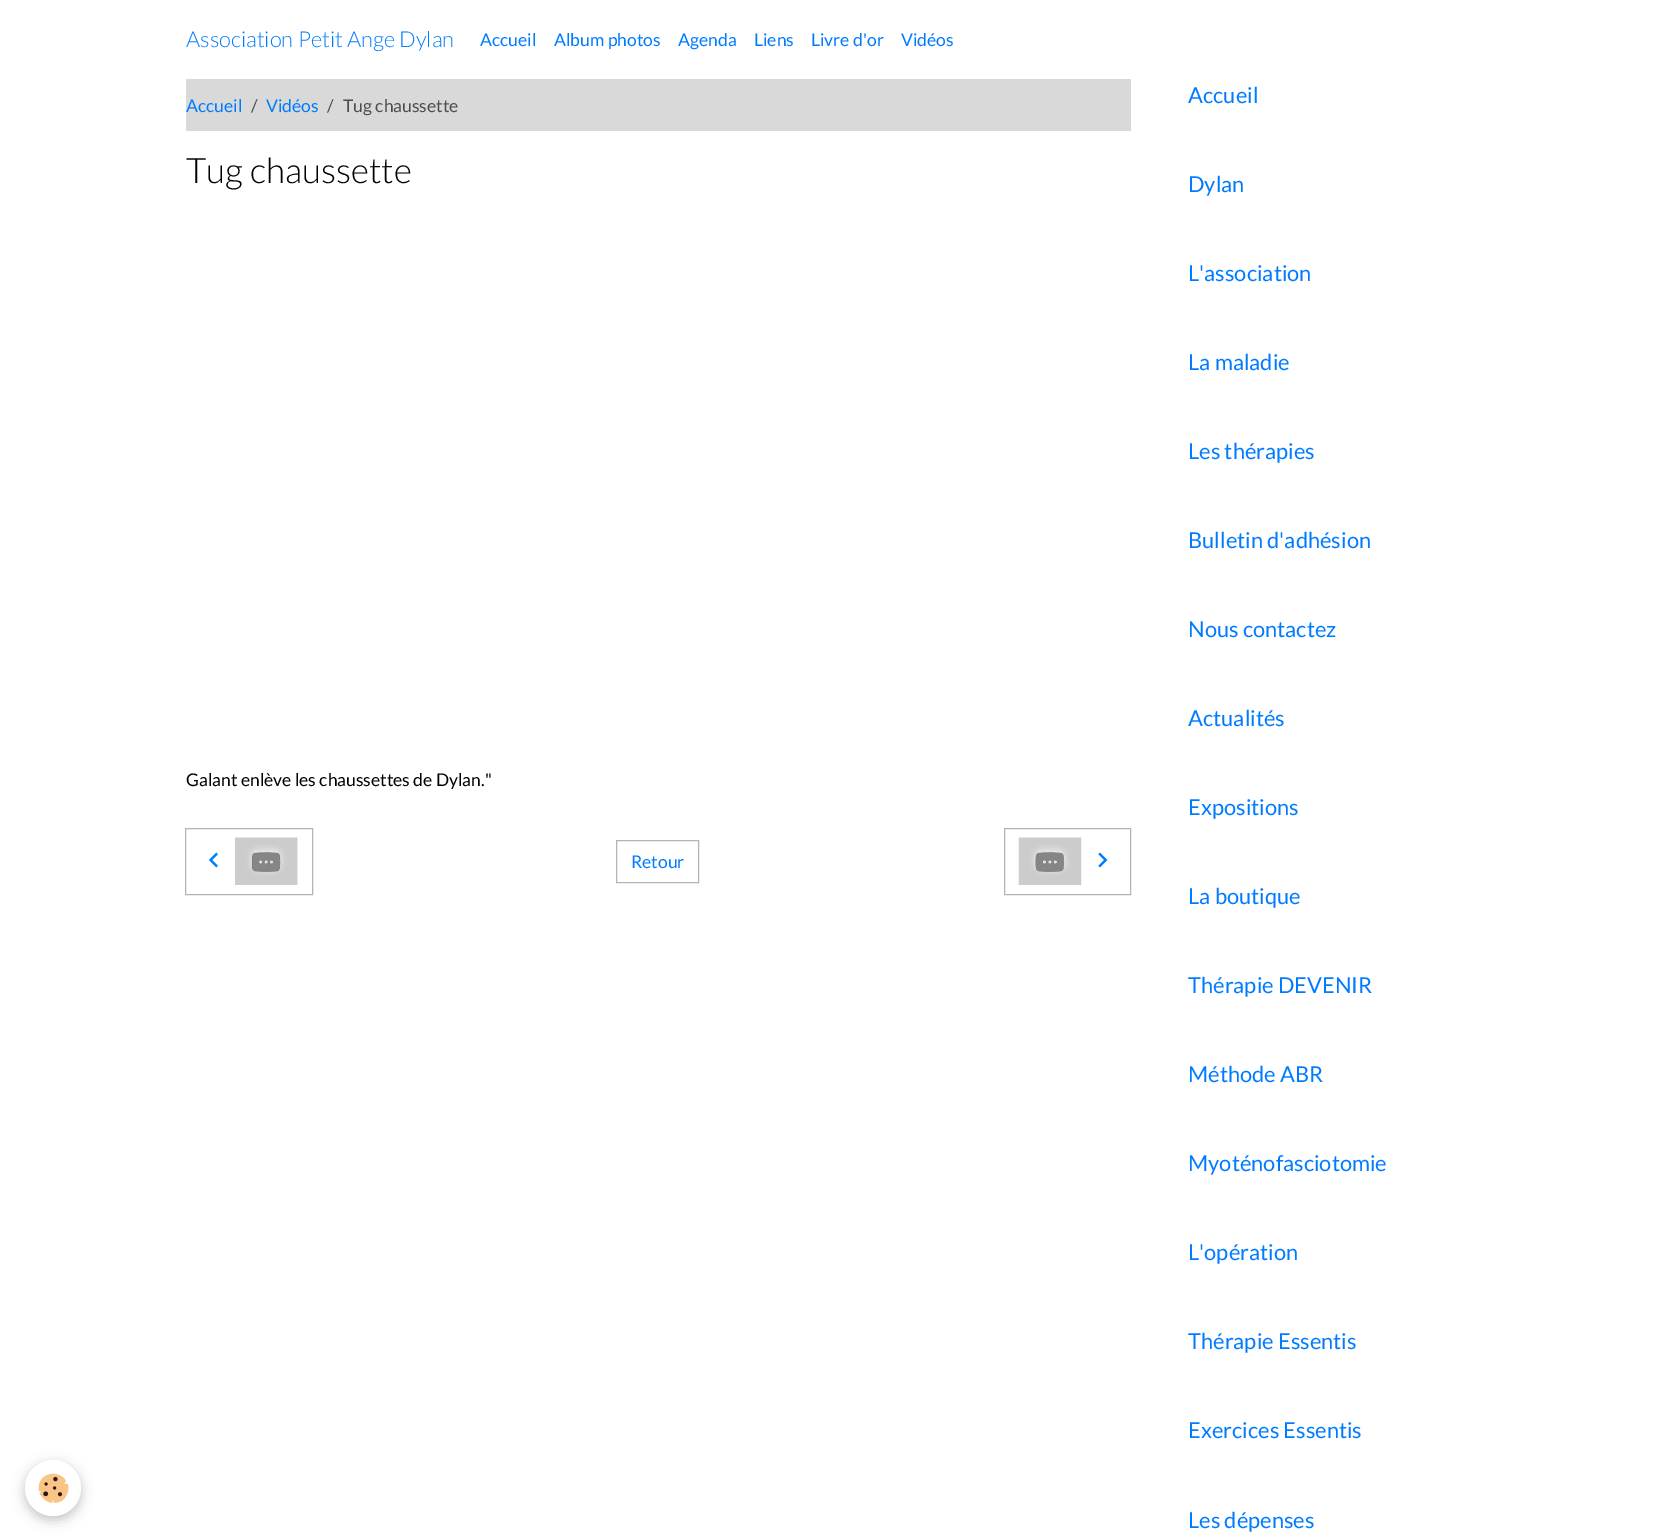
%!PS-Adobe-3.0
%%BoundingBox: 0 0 1669 1540
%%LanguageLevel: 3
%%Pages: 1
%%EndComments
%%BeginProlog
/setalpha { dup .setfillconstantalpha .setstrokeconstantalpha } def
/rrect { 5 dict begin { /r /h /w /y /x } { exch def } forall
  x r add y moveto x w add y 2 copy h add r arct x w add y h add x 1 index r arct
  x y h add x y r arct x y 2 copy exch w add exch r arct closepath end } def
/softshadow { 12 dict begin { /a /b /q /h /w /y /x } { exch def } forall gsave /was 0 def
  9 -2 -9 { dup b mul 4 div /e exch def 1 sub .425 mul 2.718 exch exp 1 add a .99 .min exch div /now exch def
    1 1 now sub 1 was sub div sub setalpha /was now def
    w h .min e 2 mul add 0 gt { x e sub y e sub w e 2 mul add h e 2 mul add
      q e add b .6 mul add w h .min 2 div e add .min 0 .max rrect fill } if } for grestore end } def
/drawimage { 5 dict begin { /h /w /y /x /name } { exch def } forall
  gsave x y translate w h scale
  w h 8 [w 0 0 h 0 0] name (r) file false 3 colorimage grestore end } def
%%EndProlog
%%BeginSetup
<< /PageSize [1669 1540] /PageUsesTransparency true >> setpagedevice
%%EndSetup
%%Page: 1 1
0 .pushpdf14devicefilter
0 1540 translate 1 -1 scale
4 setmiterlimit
1 setgray
0 0 1669 1540 rectfill
0 setgray
25 1464 56 56 28 6 0.24 softshadow
1 setgray
newpath 53 1488 28 0 360 arc closepath fill
(images/1.raw) 38 1473 31 30 drawimage
0.851 setgray
186 79 945 52 rectfill
0.702 setgray
185.5 828.5 127 66 rectstroke
(images/2.raw) 208 852 10 16 drawimage
(images/3.raw) 235 837 63 48 drawimage
616.5 840.5 82 42 rectstroke
1004.5 828.5 126 66 rectstroke
(images/4.raw) 1018 837 64 48 drawimage
(images/5.raw) 1098 852 10 16 drawimage
/Lato-Light [21.9 0 0 -21.9 0 0] selectfont
0 0.482 1 setrgbcolor
186 47 moveto (Association Petit Ange Dylan) show
/Lato-Regular [17.5 0 0 -17.5 0 0] selectfont
480 46 moveto (Accueil) show
554 46 moveto (Album photos) show
678 46 moveto (Agenda) show
754 46 moveto (Liens) show
811 46 moveto (Livre d'or) show
901 46 moveto (Vidéos) show
186 112 moveto (Accueil) show
0.302 setgray
251 112 moveto (/) show
0 0.482 1 setrgbcolor
266 112 moveto (Vidéos) show
0.302 setgray
327 112 moveto (/) show
343 112 moveto (Tug chaussette) show
/Lato-Light [35 0 0 -35 0 0] selectfont
0 setgray
186 183 moveto (Tug chaussette) show
/Lato-Regular [17.5 0 0 -17.5 0 0] selectfont
186 786 moveto (Galant enlève les chaussettes de Dylan.") show
0 0.482 1 setrgbcolor
631 868 moveto (Retour) show
/Lato-Regular [21.9 0 0 -21.9 0 0] selectfont
1188 103 moveto (Accueil) show
1188 192 moveto (Dylan) show
1188 281 moveto (L'association) show
1188 370 moveto (La maladie) show
1188 459 moveto (Les thérapies) show
1188 548 moveto (Bulletin d'adhésion) show
1188 637 moveto (Nous contactez) show
1188 726 moveto (Actualités) show
1188 815 moveto (Expositions) show
1188 904 moveto (La boutique) show
1188 993 moveto (Thérapie DEVENIR) show
1188 1082 moveto (Méthode ABR) show
1188 1171 moveto (Myoténofasciotomie) show
1188 1260 moveto (L'opération) show
1188 1349 moveto (Thérapie Essentis) show
1188 1438 moveto (Exercices Essentis) show
1188 1528 moveto (Les dépenses) show
.poppdf14devicefilter showpage
%%EOF
